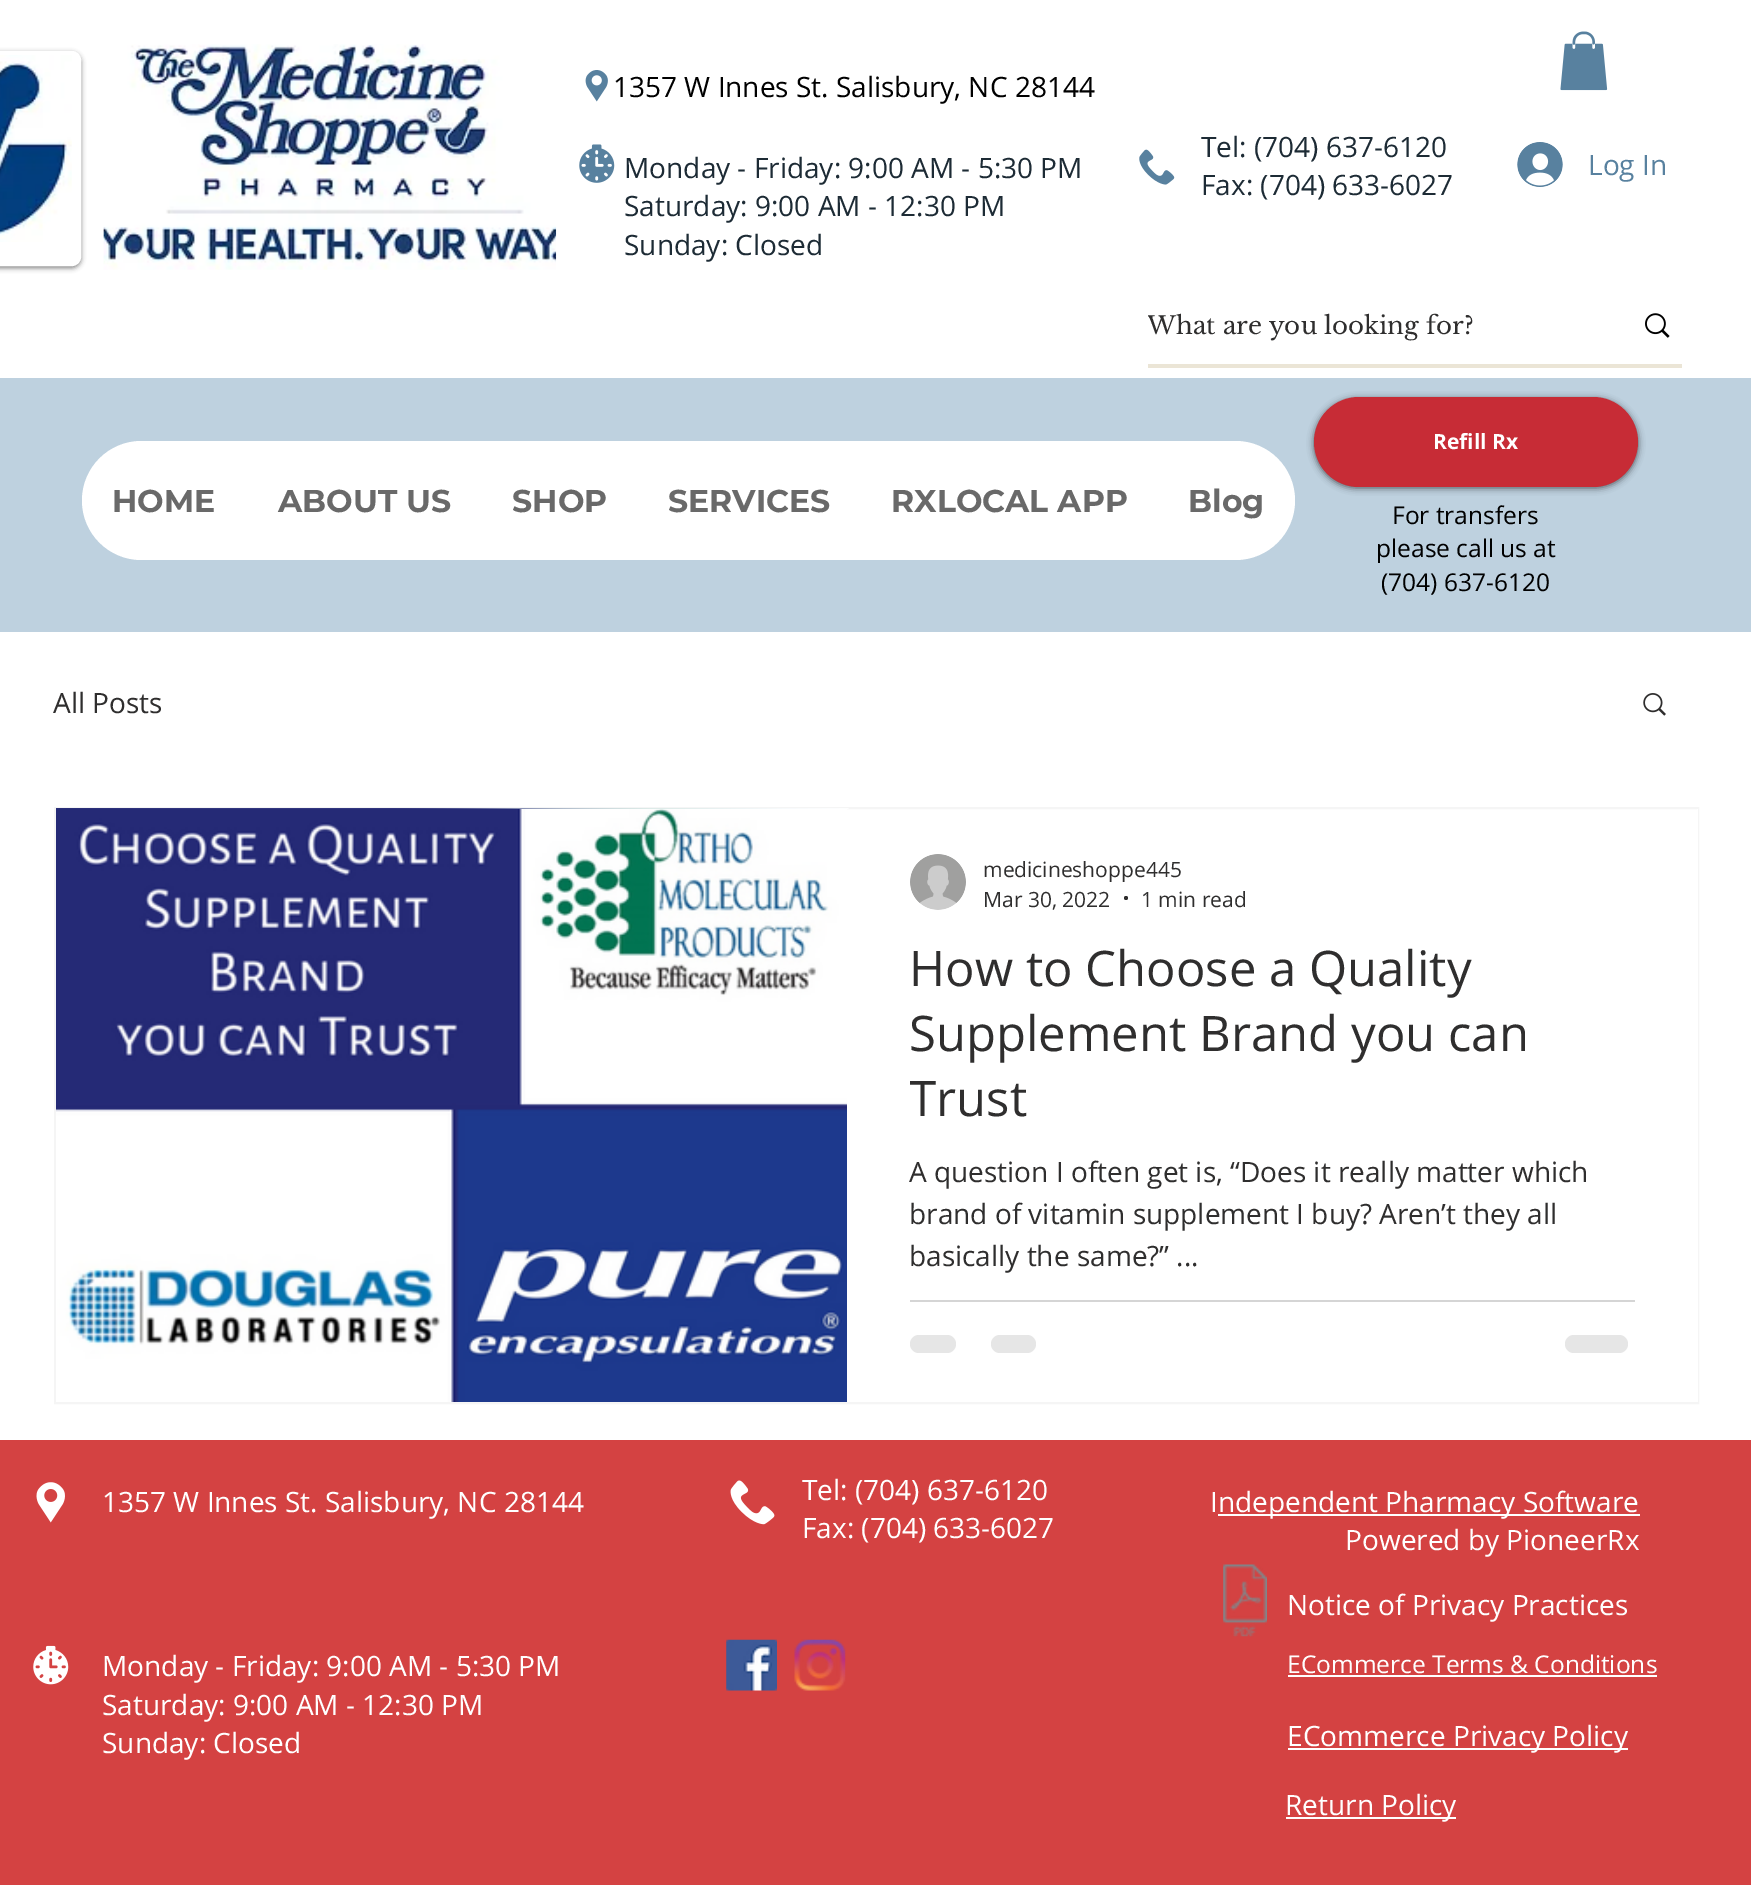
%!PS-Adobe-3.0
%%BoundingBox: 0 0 1751 1885
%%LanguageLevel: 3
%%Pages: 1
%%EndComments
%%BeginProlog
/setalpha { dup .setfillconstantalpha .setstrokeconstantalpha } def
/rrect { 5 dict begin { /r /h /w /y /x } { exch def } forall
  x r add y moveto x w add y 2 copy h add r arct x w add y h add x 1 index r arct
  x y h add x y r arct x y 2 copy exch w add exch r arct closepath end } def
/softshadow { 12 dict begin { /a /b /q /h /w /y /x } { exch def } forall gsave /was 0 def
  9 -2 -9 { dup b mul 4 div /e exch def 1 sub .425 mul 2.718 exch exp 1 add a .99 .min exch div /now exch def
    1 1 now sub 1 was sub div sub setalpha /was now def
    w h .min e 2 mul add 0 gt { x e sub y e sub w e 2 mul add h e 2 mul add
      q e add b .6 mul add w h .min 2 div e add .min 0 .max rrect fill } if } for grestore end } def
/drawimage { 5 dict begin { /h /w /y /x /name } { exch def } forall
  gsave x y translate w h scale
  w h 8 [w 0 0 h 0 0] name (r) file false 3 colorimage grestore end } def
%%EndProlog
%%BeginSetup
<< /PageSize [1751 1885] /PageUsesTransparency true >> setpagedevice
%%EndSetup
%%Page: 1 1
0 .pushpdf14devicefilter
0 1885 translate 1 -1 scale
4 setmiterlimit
1 setgray
0 0 1751 1885 rectfill
0 setgray
-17 53 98 215 9 2.5 0.5 softshadow
1 setgray
-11 53 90 211 7 rrect gsave fill grestore
4 setlinewidth
stroke
(images/1.raw) 0 55 72 187 drawimage
(images/2.raw) 103 44 454 226 drawimage
(images/3.raw) 585 70 23 32 drawimage
(images/4.raw) 1560 31 48 60 drawimage
(images/5.raw) 579 144 36 39 drawimage
(images/6.raw) 1139 149 36 36 drawimage
(images/7.raw) 1517 142 46 45 drawimage
0.922 0.898 0.839 setrgbcolor
1148 364 534 4 rectfill
(images/8.raw) 1645 313 25 25 drawimage
0.745 0.82 0.875 setrgbcolor
0 378 1751 254 rectfill
0 setgray
1314 399 324 89 44.5 3.5 0.6 softshadow
0.78 0.173 0.212 setrgbcolor
1314 397 324 90 45 rrect fill
1 setgray
82 441 1213 119 59.5 rrect fill
(images/9.raw) 1643 693 23 23 drawimage
0.961 setgray
2 setlinewidth
55 808 1643 595 rectstroke
(images/10.raw) 56 808 793 1 drawimage
(images/11.raw) 56 809 791 593 drawimage
1 setgray
1697 809 1 593 rectfill
(images/12.raw) 910 854 56 56 drawimage
0.184 0.18 0.18 setrgbcolor
newpath 1126 898 2 0 360 arc closepath fill
0.835 setgray
910 1300 725 2 rectfill
0.902 setgray
910 1335 46 18 9 rrect fill
991 1335 45 18 9 rrect fill
1565 1335 63 18 9 rrect fill
0.831 0.259 0.259 setrgbcolor
0 1440 1751 445 rectfill
(images/13.raw) 36 1482 29 41 drawimage
(images/14.raw) 730 1480 45 45 drawimage
1 setgray
1218 1514 422 2 rectfill
(images/15.raw) 1223 1564 44 73 drawimage
(images/16.raw) 33 1645 36 40 drawimage
(images/17.raw) 726 1639 51 52 drawimage
(images/18.raw) 794 1639 52 52 drawimage
1288 1675 369 2 rectfill
1288 1748 340 2 rectfill
1286 1817 170 2 rectfill
/OpenSans-Regular [28 0 0 -28 0 0] selectfont
0 setgray
613 97 moveto (1357 W Innes St. Salisbury, NC 28144) show
0.114 0.169 0.208 setrgbcolor
624 178 moveto (Monday - Friday: 9:00 AM - 5:30 PM) show
624 216 moveto (Saturday: 9:00 AM - 12:30 PM) show
624 255 moveto (Sunday: Closed) show
1201 157 moveto (Tel: \(704\) 637-6120) show
1201 195 moveto (Fax: \(704\) 633-6027) show
0.345 0.506 0.624 setrgbcolor
1588 175 moveto (Log In) show
gsave
1148 310 424 31 rectclip
/LibreBaskerville-Regular [24.5 0 0 -24.5 0 0] selectfont
0.184 0.18 0.18 setrgbcolor
1147 334 moveto (What are you looking for?) show
grestore
/OpenSans-Bold [21 0 0 -21 0 0] selectfont
1 setgray
1433 449 moveto (Refill Rx) show
/Montserrat-Bold [31.5 0 0 -31.5 0 0] selectfont
0.412 setgray
112 512 moveto (HOME) show
278 512 moveto (ABOUT US) show
512 512 moveto (SHOP) show
668 512 moveto (SERVICES) show
891 512 moveto (RXLOCAL APP) show
1188 512 moveto (Blog) show
/OpenSans-Regular [24.5 0 0 -24.5 0 0] selectfont
0 setgray
1392 524 moveto (For transfers) show
1376 557 moveto (please call us at) show
1381 591 moveto (\(704\) 637-6120) show
/OpenSans-Regular [28 0 0 -28 0 0] selectfont
0.184 0.18 0.18 setrgbcolor
53 713 moveto (All Posts) show
/OpenSans-Regular [21 0 0 -21 0 0] selectfont
983 877 moveto (medicineshoppe445) show
983 907 moveto (Mar 30, 2022) show
1141 907 moveto (1 min read) show
/OpenSans-Regular [49 0 0 -49 0 0] selectfont
909 986 moveto (How to Choose a Quality) show
909 1051 moveto (Supplement Brand you can) show
gsave
910 935 725 194 rectclip
909 1116 moveto (Trust) show
grestore
/OpenSans-Regular [28 0 0 -28 0 0] selectfont
909 1182 moveto (A question I often get is, “Does it really matter which) show
909 1224 moveto (brand of vitamin supplement I buy? Aren’t they all) show
909 1266 moveto (basically the same?” ...) show
1 setgray
102 1512 moveto (1357 W Innes St. Salisbury, NC 28144) show
802 1500 moveto (Tel: \(704\) 637-6120) show
802 1538 moveto (Fax: \(704\) 633-6027) show
1210 1512 moveto (I) show
1218 1512 moveto (ndependent Pharmacy Software) show
1345 1550 moveto (Powered by PioneerRx) show
1287 1615 moveto (Notice of Privacy Practices) show
102 1676 moveto (Monday - Friday: 9:00 AM - 5:30 PM) show
102 1715 moveto (Saturday: 9:00 AM - 12:30 PM) show
102 1753 moveto (Sunday: Closed) show
/OpenSans-Regular [24.5 0 0 -24.5 0 0] selectfont
1287 1673 moveto (ECommerce Terms & Conditions) show
/OpenSans-Regular [28 0 0 -28 0 0] selectfont
1287 1746 moveto (ECommerce Privacy Policy) show
1285 1815 moveto (Return Policy) show
.poppdf14devicefilter showpage
%%EOF
